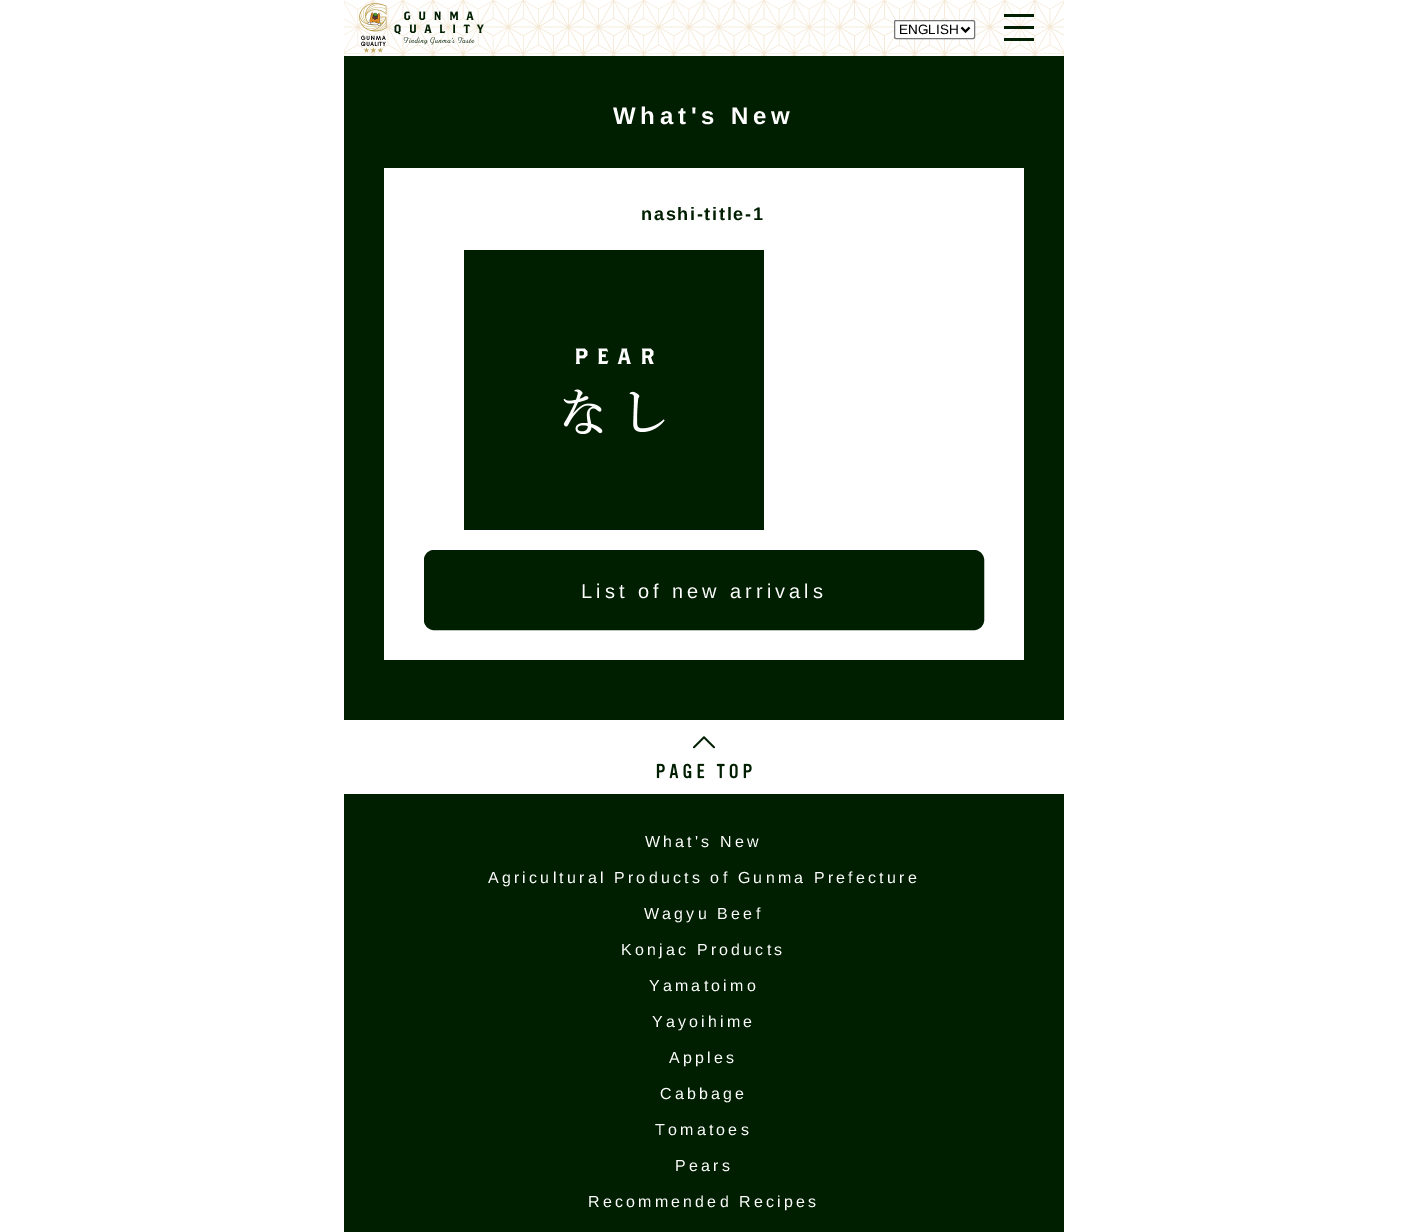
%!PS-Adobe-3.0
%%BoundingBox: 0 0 1407 1232
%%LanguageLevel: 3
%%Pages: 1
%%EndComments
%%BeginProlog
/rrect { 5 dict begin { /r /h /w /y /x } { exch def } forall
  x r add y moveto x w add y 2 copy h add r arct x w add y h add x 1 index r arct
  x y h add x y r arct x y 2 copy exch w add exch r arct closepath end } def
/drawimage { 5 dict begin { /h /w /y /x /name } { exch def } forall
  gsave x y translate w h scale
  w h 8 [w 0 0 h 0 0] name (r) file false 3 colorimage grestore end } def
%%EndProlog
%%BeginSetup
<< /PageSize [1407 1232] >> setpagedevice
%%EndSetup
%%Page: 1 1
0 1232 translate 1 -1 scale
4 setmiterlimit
1 setgray
0 0 1407 1232 rectfill
(images/1.raw) 344 0 720 56 drawimage
(images/2.raw) 359 3 125 50 drawimage
894.5 20.5 80 18 1.5 rrect gsave fill grestore
0.463 setgray
stroke
0 setgray
2 setlinewidth
newpath 961.5 27.5 moveto 965.5 31.5 lineto 969.5 27.5 lineto stroke
0 0.118 0 setrgbcolor
1004 14 30 3 rectfill
1004 26 30 3 rectfill
1004 38 30 3 rectfill
344 56 720 664 rectfill
1 setgray
384 168 640 492 rectfill
(images/3.raw) 464 250 300 280 drawimage
0 0.118 0 setrgbcolor
424.5 550.5 559 79 9.5 rrect gsave fill grestore
1 setlinewidth
stroke
(images/4.raw) 656 736 96 43 drawimage
344 794 720 438 rectfill
/LiberationSans-Regular [13.5 0 0 -13.5 0 0] selectfont
0 setgray
899 34 moveto (ENGLISH) show
/LiberationSans-Bold [24 0 0 -24 0 0] selectfont
1 setgray
613 124 moveto 4.75 0 (What's New) ashow
/LiberationSans-Bold [18 0 0 -18 0 0] selectfont
0 0.118 0 setrgbcolor
641 220 moveto 1.75 0 (nashi-title-1) ashow
/LiberationSans-Regular [20 0 0 -20 0 0] selectfont
1 setgray
581 598 moveto 4 0 (List of new arrivals) ashow
/LiberationSans-Regular [16 0 0 -16 0 0] selectfont
645 847 moveto 3.2 0 (What's New) ashow
488 883 moveto 3.2 0 (Agricultural Products of Gunma Prefecture) ashow
644 919 moveto 3.2 0 (Wagyu Beef) ashow
621 955 moveto 3.2 0 (Konjac Products) ashow
649 991 moveto 3.2 0 (Yamatoimo) ashow
652 1027 moveto 3.2 0 (Yayoihime) ashow
669 1063 moveto 3.2 0 (Apples) ashow
660 1099 moveto 3.2 0 (Cabbage) ashow
655 1135 moveto 3.2 0 (Tomatoes) ashow
675 1171 moveto 3.2 0 (Pears) ashow
588 1207 moveto 3.2 0 (Recommended Recipes) ashow
showpage
%%EOF
